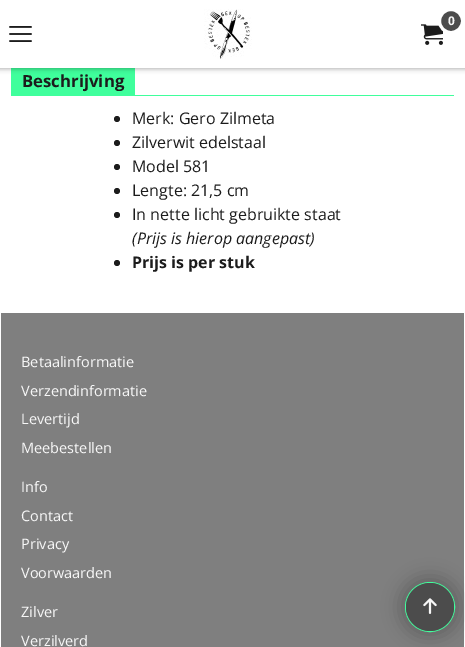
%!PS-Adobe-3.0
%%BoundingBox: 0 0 465 647
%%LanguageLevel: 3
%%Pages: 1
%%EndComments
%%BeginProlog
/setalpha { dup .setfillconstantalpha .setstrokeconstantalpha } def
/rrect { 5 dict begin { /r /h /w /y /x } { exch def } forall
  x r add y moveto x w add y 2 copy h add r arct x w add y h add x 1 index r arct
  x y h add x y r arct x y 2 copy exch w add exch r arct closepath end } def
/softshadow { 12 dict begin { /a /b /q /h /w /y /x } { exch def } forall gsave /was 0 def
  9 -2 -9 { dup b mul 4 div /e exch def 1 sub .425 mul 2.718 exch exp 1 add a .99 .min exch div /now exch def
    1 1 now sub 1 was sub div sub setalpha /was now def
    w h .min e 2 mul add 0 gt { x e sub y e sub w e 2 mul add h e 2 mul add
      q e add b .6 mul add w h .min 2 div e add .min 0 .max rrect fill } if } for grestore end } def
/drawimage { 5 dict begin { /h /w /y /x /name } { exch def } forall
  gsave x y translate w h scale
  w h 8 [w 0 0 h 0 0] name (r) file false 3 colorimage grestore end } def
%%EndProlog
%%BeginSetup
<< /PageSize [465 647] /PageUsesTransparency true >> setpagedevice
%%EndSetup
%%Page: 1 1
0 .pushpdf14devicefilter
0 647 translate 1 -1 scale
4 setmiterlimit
1 setgray
0 0 465 647 rectfill
0.247 1 0.612 setrgbcolor
11 68 124 28 rectfill
0 setgray
-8 -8 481 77 0 2.5 0.3 softshadow
1 setgray
0 0 465 68 rectfill
(images/1.raw) 204 9 48 50 drawimage
(images/2.raw) 421 24 22 21 drawimage
0.298 setgray
newpath 451 21 11.5 0 360 arc closepath gsave fill grestore
1 setgray
3 setlinewidth
stroke
(images/3.raw) 9 26 23 16 drawimage
0.247 1 0.612 setrgbcolor
135 95 319 1 rectfill
0.11 setgray
newpath 117 119 3 0 360 arc closepath fill
newpath 117 143 3 0 360 arc closepath fill
newpath 117 167 3 0 360 arc closepath fill
newpath 117 191 3 0 360 arc closepath fill
newpath 117 215 3 0 360 arc closepath fill
newpath 117 263 3 0 360 arc closepath fill
0.498 setgray
1 313 463 334 rectfill
0 setgray
399 576 62 62 31 8.5 0.2 softshadow
0.247 1 0.612 setrgbcolor
1 setlinewidth
newpath 430 607 24.5 0 360 arc closepath stroke
0.298 setgray
newpath 430 607 24 0 360 arc closepath fill
(images/4.raw) 423 598 14 16 drawimage
/OpenSans-Bold [12 0 0 -12 0 0] selectfont
0.969 setgray
448 25 moveto (0) show
/OpenSans-Bold [16.75 0 0 -16.75 0 0] selectfont
0.11 setgray
22 87 moveto (Beschrijving) show
/OpenSans-Regular [16 0 0 -16 0 0] selectfont
132 124 moveto (Merk: Gero Zilmeta) show
132 148 moveto (Zilverwit edelstaal) show
132 172 moveto (Model 581) show
132 196 moveto (Lengte: 21,5 cm) show
132 220 moveto (In nette licht gebruikte staat) show
/OpenSans-Italic [16 0 0 -16 0 0] selectfont
132 244 moveto (\(Prijs is hierop aangepast\)) show
/OpenSans-Bold [16 0 0 -16 0 0] selectfont
132 268 moveto (Prijs is per stuk) show
/OpenSans-Regular [14.5 0 0 -14.5 0 0] selectfont
0.969 setgray
21 367 moveto (Betaalinformatie) show
21 396 moveto (Verzendinformatie) show
21 424 moveto (Levertijd) show
21 453 moveto (Meebestellen) show
21 492 moveto (Info) show
21 521 moveto (Contact) show
21 549 moveto (Privacy) show
21 578 moveto (Voorwaarden) show
21 617 moveto (Zilver) show
21 646 moveto (Verzilverd) show
.poppdf14devicefilter showpage
%%EOF
